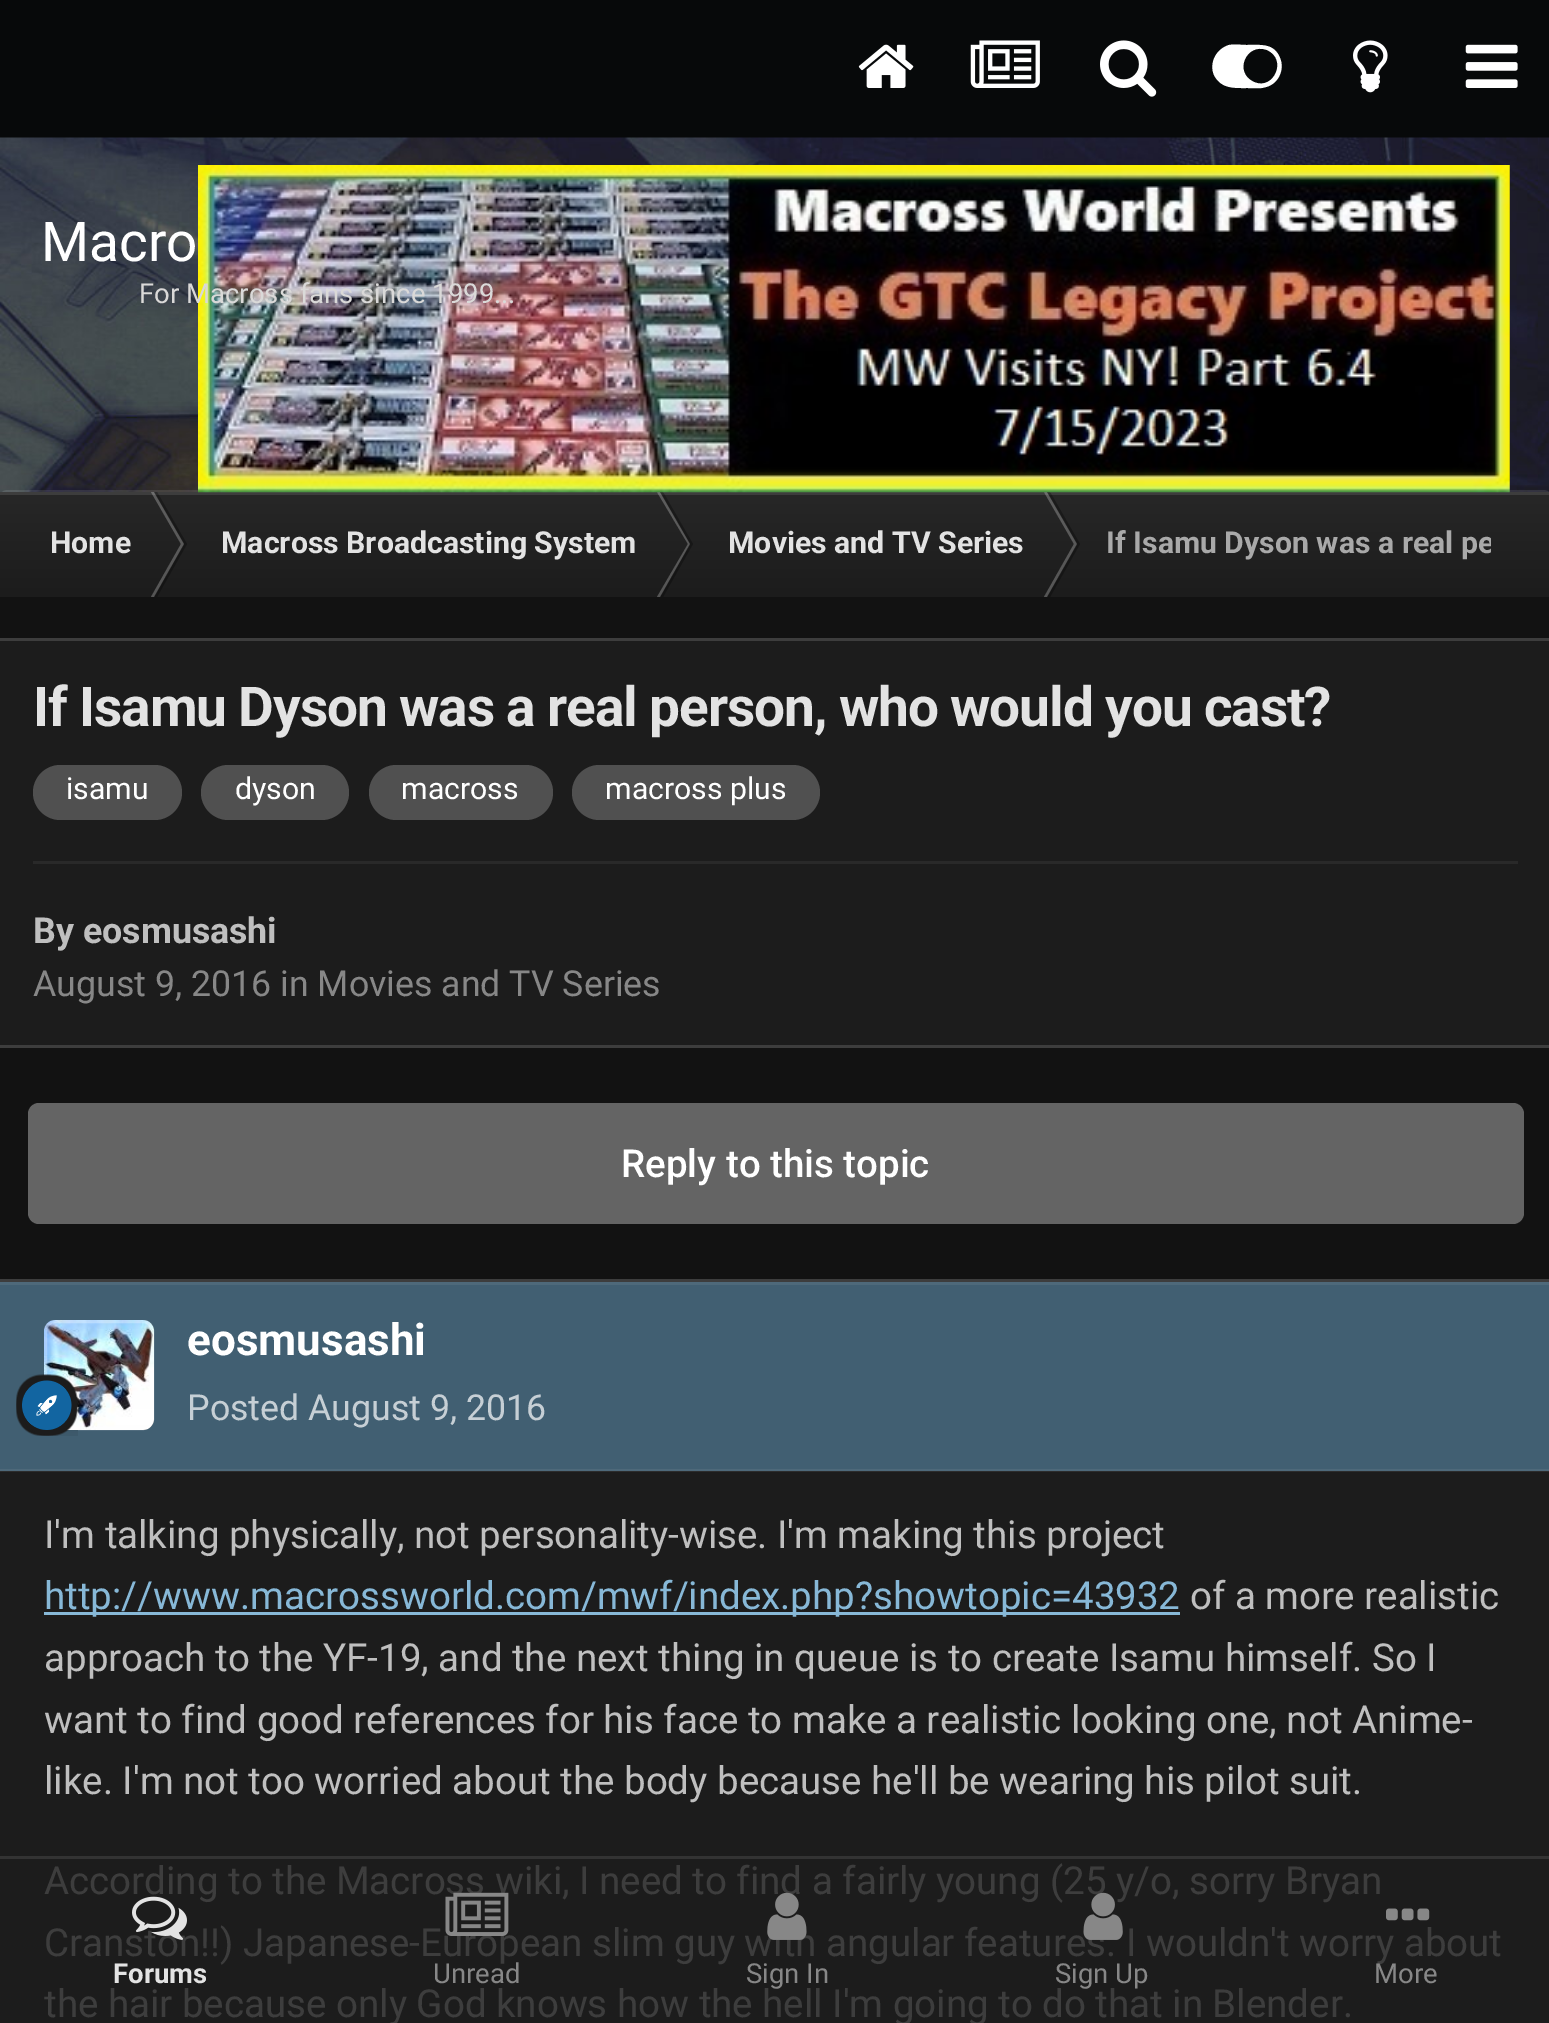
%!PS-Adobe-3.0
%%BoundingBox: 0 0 1549 2023
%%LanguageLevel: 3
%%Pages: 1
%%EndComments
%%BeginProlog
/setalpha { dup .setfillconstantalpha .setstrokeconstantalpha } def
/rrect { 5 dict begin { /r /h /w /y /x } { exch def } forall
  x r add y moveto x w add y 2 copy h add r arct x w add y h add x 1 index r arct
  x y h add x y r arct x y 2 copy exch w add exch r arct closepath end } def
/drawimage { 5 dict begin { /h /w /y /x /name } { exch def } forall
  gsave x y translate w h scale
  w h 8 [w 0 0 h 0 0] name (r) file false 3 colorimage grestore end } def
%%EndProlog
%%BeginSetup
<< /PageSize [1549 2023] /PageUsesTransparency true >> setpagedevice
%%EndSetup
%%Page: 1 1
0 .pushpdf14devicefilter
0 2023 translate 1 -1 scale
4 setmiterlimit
0.027 0.035 0.039 setrgbcolor
0 0 1549 2023 rectfill
(images/1.raw) 858 44 56 44 drawimage
(images/2.raw) 970 40 70 48 drawimage
(images/3.raw) 1100 40 57 57 drawimage
1 setgray
newpath 1214 75 moveto 1209 63 1216 49 1229 45 curveto 1235 44 1241 45 1247 45 curveto 1261 45 1274 43 1280 58 curveto 1285 70 1278 84 1266 87 curveto 1260 89 1253 88 1247 88 curveto 1234 88 1221 89 1214 75 curveto closepath 1254 82 moveto 1274 91 1288 59 1267 50 curveto 1246 42 1233 73 1254 82 curveto closepath fill
(images/4.raw) 1353 40 35 53 drawimage
(images/5.raw) 1465 44 53 44 drawimage
(images/6.raw) 0 137 1549 355 drawimage
0.1 setalpha
3 setlinewidth
-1.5 491.5 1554 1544 9.5 rrect stroke
1 setalpha
0.239 setgray
0 492 1549 3 rectfill
gsave newpath 0 495 moveto 1549 495 lineto 1549 597 lineto 0 597 lineto closepath clip newpath
<< /ShadingType 2 /ColorSpace /DeviceRGB /Coords [776 492 776 597] /Extend [true true] /Function << /FunctionType 2 /Domain [0 1] /C0 [0.153 0.153 0.153] /C1 [0.11 0.11 0.11] /N 1 >> >> shfill grestore
0.25 setalpha
1 setgray
newpath 657 492 moveto 660 492 lineto 690 544 lineto 688 544 lineto closepath fill
0.3 setalpha
0 setgray
newpath 660 492 moveto 663 492 lineto 693 544 lineto 690 544 lineto closepath fill
0.25 setalpha
1 setgray
newpath 1044 492 moveto 1047 492 lineto 1077 544 lineto 1074 544 lineto closepath fill
0.3 setalpha
0 setgray
newpath 1047 492 moveto 1050 492 lineto 1080 544 lineto 1077 544 lineto closepath fill
1 setalpha
(images/7.raw) 198 165 1312 328 drawimage
0.071 setgray
0 597 1549 682 rectfill
0.25 setalpha
1 setgray
newpath 151 492 moveto 154 492 lineto 184 544 lineto 181 544 lineto closepath fill
0.3 setalpha
0 setgray
newpath 154 492 moveto 157 492 lineto 187 544 lineto 184 544 lineto closepath fill
0.25 setalpha
1 setgray
newpath 151 597 moveto 154 597 lineto 184 544 lineto 181 544 lineto closepath fill
0.3 setalpha
0 setgray
newpath 154 597 moveto 157 597 lineto 187 544 lineto 184 544 lineto closepath fill
0.25 setalpha
1 setgray
newpath 657 597 moveto 660 597 lineto 690 544 lineto 688 544 lineto closepath fill
0.3 setalpha
0 setgray
newpath 660 597 moveto 663 597 lineto 693 544 lineto 690 544 lineto closepath fill
0.25 setalpha
1 setgray
newpath 1044 597 moveto 1047 597 lineto 1077 544 lineto 1074 544 lineto closepath fill
0.3 setalpha
0 setgray
newpath 1047 597 moveto 1050 597 lineto 1080 544 lineto 1077 544 lineto closepath fill
1 setalpha
0.11 setgray
0 641 1549 404 rectfill
0.239 setgray
0 638 1549 3 rectfill
0 1045 1549 3 rectfill
0.314 setgray
33 765 149 55 27.5 rrect fill
201 765 148 55 27.5 rrect fill
369 765 184 55 27.5 rrect fill
572 765 248 55 27.5 rrect fill
0.161 setgray
33 861 1485 3 rectfill
0.392 setgray
28 1103 1496 121 11 rrect fill
0.11 setgray
0 1472 1549 384 rectfill
0 1859 1549 164 rectfill
0.173 setgray
0 1471 1549 1 rectfill
0.239 setgray
0 1279 1549 3 rectfill
0.255 0.373 0.447 setrgbcolor
0 1285 1549 184 rectfill
0.306 0.412 0.478 setrgbcolor
0 1469 1549 2 rectfill
0 1282 1549 3 rectfill
(images/8.raw) 44 1320 110 110 drawimage
0.3 setalpha
1 setgray
45.5 1321.5 107 107 9.5 rrect stroke
1 setalpha
(images/9.raw) 16 1374 62 62 drawimage
0.529 0.722 0.843 setrgbcolor
44 1612 1136 3 rectfill
0.2 setgray
0 1856 1549 3 rectfill
(images/14.raw) 1386 1908 44 13 drawimage
/Roboto-Regular [55 0 0 -55 0 0] selectfont
1 setgray
41 261 moveto (Macro) show
/Roboto-Regular [27.5 0 0 -27.5 0 0] selectfont
0.855 0.851 0.847 setrgbcolor
139 303 moveto (For Macross fans since 1999...) show
/Roboto-Bold [30.25 0 0 -30.25 0 0] selectfont
0.89 setgray
50 553 moveto (Home) show
221 553 moveto (Macross Broadcasting System) show
728 553 moveto (Movies and TV Series) show
gsave
0 492 1491 105 rectclip
0.663 setgray
1106 553 moveto (If Isamu Dyson was a real pe) show
grestore
/Roboto-Bold [55 0 0 -55 0 0] selectfont
33 726 moveto -1.1 0 (If Isamu Dyson was a real person, who would you cast?) ashow
/Roboto-Regular [30.25 0 0 -30.25 0 0] selectfont
1 setgray
66 799 moveto (isamu) show
235 799 moveto (dyson) show
401 799 moveto (macross) show
605 799 moveto (macross plus) show
/Roboto-Bold [35.75 0 0 -35.75 0 0] selectfont
0.749 setgray
33 943 moveto (By eosmusashi) show
/Roboto-Regular [35.75 0 0 -35.75 0 0] selectfont
0.529 setgray
33 996 moveto (August 9, 2016 in Movies and TV Series) show
/Roboto-Medium [38.5 0 0 -38.5 0 0] selectfont
1 setgray
621 1177 moveto (Reply to this topic) show
/Roboto-Bold [44 0 0 -44 0 0] selectfont
187 1355 moveto (eosmusashi) show
/Roboto-Regular [35.75 0 0 -35.75 0 0] selectfont
0.776 0.812 0.835 setrgbcolor
187 1420 moveto (Posted August 9, 2016) show
/Roboto-Regular [38.5 0 0 -38.5 0 0] selectfont
0.749 setgray
44 1548 moveto (I'm talking physically, not personality-wise. I'm making this project) show
0.529 0.722 0.843 setrgbcolor
44 1609 moveto (http://www.macrossworld.com/mwf/index.php?showtopic=43932) show
0.749 setgray
1190 1609 moveto (of a more realistic) show
44 1671 moveto (approach to the YF-19, and the next thing in queue is to create Isamu himself. So I) show
44 1733 moveto (want to find good references for his face to make a realistic looking one, not Anime-) show
44 1794 moveto (like. I'm not too worried about the body because he'll be wearing his pilot suit.) show
0.239 setgray
44 1894 moveto (According to the Macross wiki, I need to find a fairly young \(25 y/o, sorry Bryan) show
44 1956 moveto (Cranston!!\) Japanese-European slim guy with angular features. I wouldn't worry about) show
44 2017 moveto (the hair because only God knows how the hell I'm going to do that in Blender.) show
(images/10.raw) 132 1896 55 44 drawimage
/Roboto-Bold [27.5 0 0 -27.5 0 0] selectfont
0.89 setgray
113 1983 moveto (Forums) show
(images/11.raw) 445 1892 64 44 drawimage
/Roboto-Regular [27.5 0 0 -27.5 0 0] selectfont
0.529 setgray
433 1983 moveto (Unread) show
(images/12.raw) 767 1892 40 48 drawimage
746 1983 moveto (Sign In) show
(images/13.raw) 1083 1892 40 48 drawimage
1055 1983 moveto (Sign Up) show
1374 1983 moveto (More) show
.poppdf14devicefilter showpage
%%EOF
